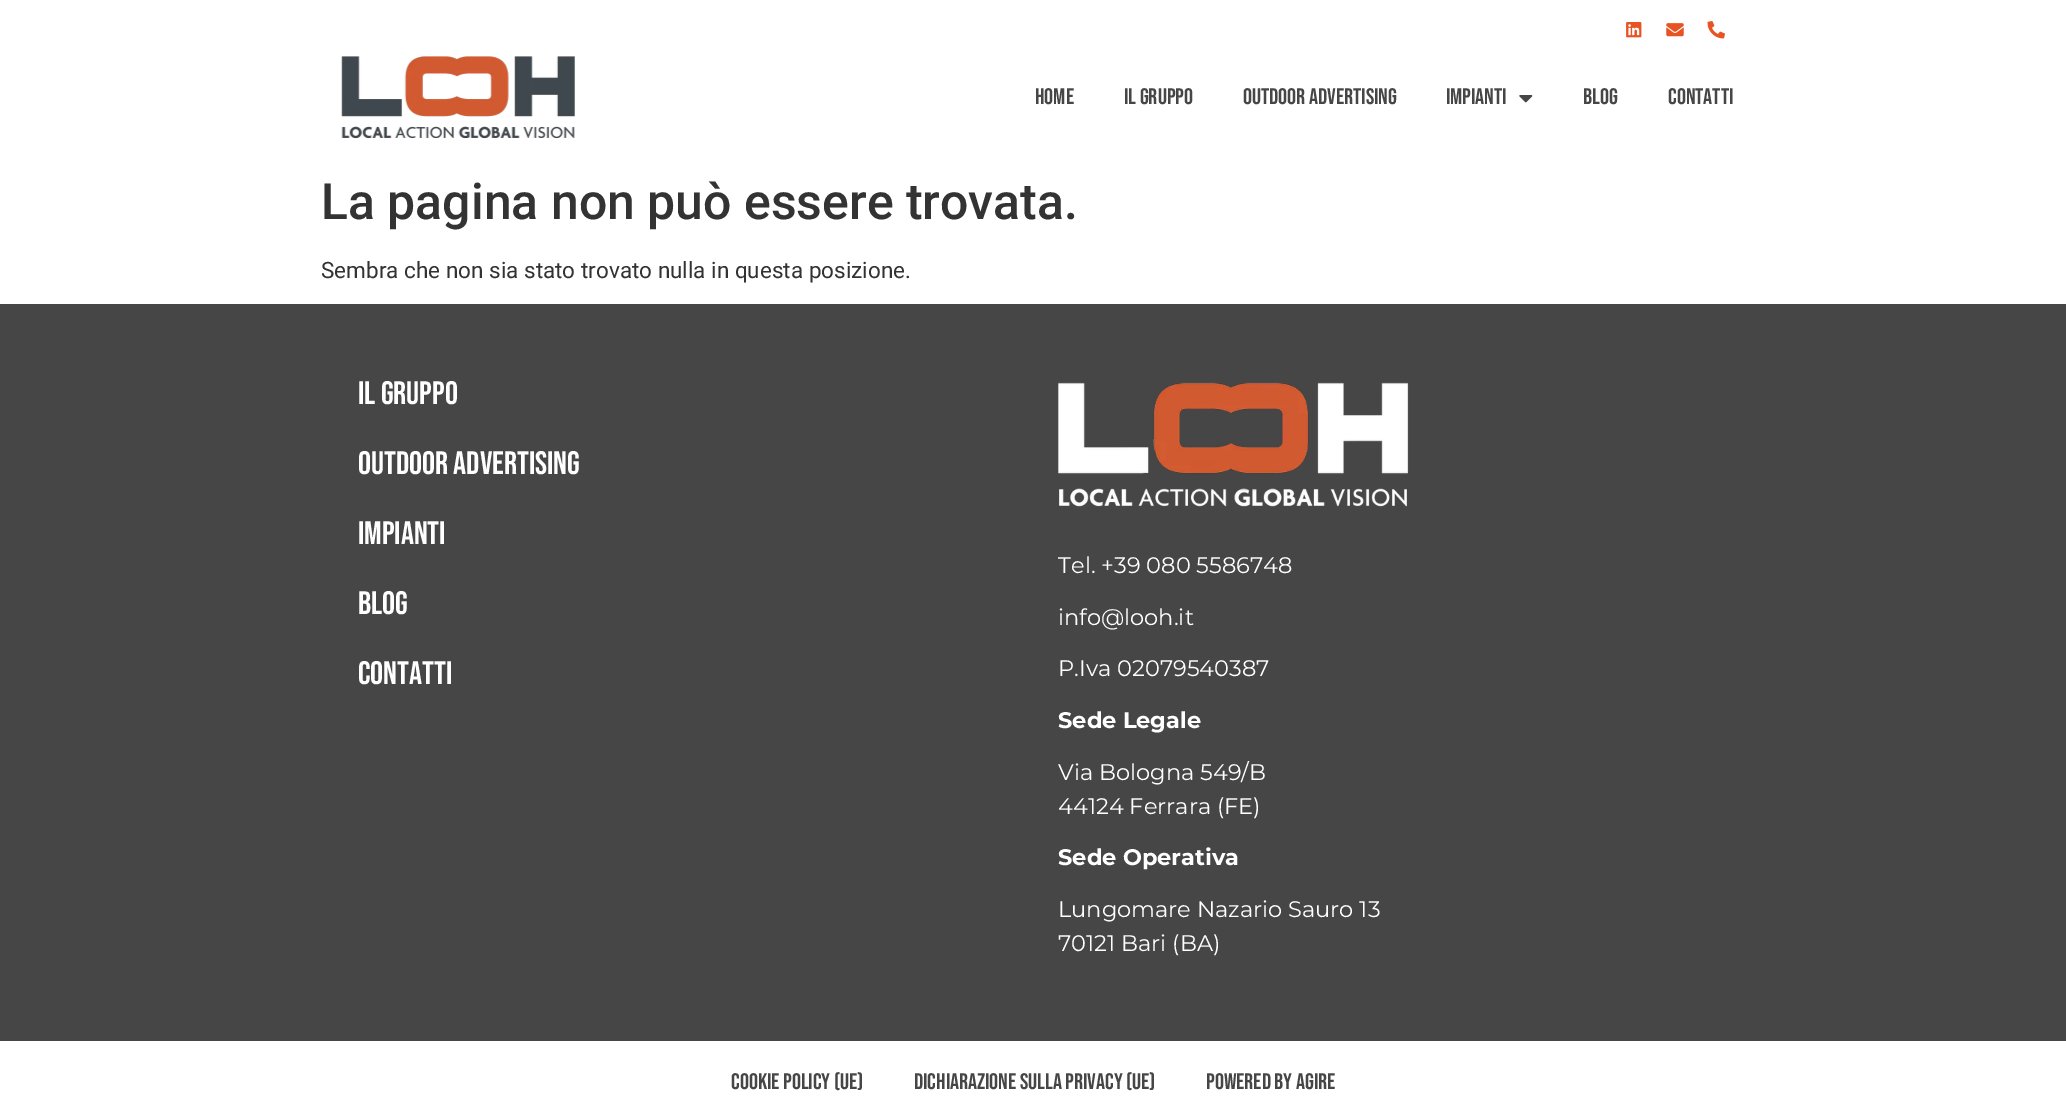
%!PS-Adobe-3.0
%%BoundingBox: 0 0 2066 1113
%%LanguageLevel: 3
%%Pages: 1
%%EndComments
%%BeginProlog
/drawimage { 5 dict begin { /h /w /y /x /name } { exch def } forall
  gsave x y translate w h scale
  w h 8 [w 0 0 h 0 0] name (r) file false 3 colorimage grestore end } def
%%EndProlog
%%BeginSetup
<< /PageSize [2066 1113] >> setpagedevice
%%EndSetup
%%Page: 1 1
0 1113 translate 1 -1 scale
4 setmiterlimit
1 setgray
0 0 2066 1113 rectfill
(images/1.raw) 1626 22 16 16 drawimage
(images/2.raw) 1666 23 18 14 drawimage
(images/3.raw) 1707 21 18 18 drawimage
(images/4.raw) 341 56 234 83 drawimage
(images/5.raw) 1519 95 14 8 drawimage
0.275 setgray
0 304 2066 737 rectfill
(images/6.raw) 1058 382 351 125 drawimage
/BebasNeue-Regular [22.5 0 0 -22.5 0 0] selectfont
1035 104 moveto (Home) show
1124 104 moveto (Il gruppo) show
1243 104 moveto (Outdoor advertising) show
1446 104 moveto (Impianti) show
1583 104 moveto (Blog) show
1668 104 moveto (Contatti) show
/Roboto-Medium [50 0 0 -50 0 0] selectfont
0.2 setgray
321 219 moveto (La pagina non può essere trovata.) show
/Roboto-Regular [22.5 0 0 -22.5 0 0] selectfont
321 278 moveto (Sembra che non sia stato trovato nulla in questa posizione.) show
/BebasNeue-Regular [32.5 0 0 -32.5 0 0] selectfont
1 setgray
358 404 moveto (Il gruppo) show
358 474 moveto (Outdoor advertising) show
358 544 moveto (Impianti) show
358 614 moveto (Blog) show
358 684 moveto (Contatti) show
/Montserrat-Regular [22.5 0 0 -22.5 0 0] selectfont
1058 573 moveto (Tel. +39 080 5586748) show
1058 625 moveto (info@looh.it) show
1058 676 moveto (P.Iva 02079540387) show
/Montserrat-Bold [22.5 0 0 -22.5 0 0] selectfont
1058 728 moveto (Sede Legale) show
/Montserrat-Regular [22.5 0 0 -22.5 0 0] selectfont
1058 780 moveto (Via Bologna 549/B) show
1058 814 moveto (44124 Ferrara \(FE\)) show
/Montserrat-Bold [22.5 0 0 -22.5 0 0] selectfont
1058 865 moveto (Sede Operativa) show
/Montserrat-Regular [22.5 0 0 -22.5 0 0] selectfont
1058 917 moveto (Lungomare Nazario Sauro 13) show
1058 951 moveto (70121 Bari \(BA\)) show
/BebasNeue-Regular [22.5 0 0 -22.5 0 0] selectfont
0.275 setgray
731 1089 moveto (Cookie Policy \(UE\)) show
914 1089 moveto (Dichiarazione sulla Privacy \(UE\)) show
1206 1089 moveto (Powered by AGIRE) show
showpage
%%EOF
